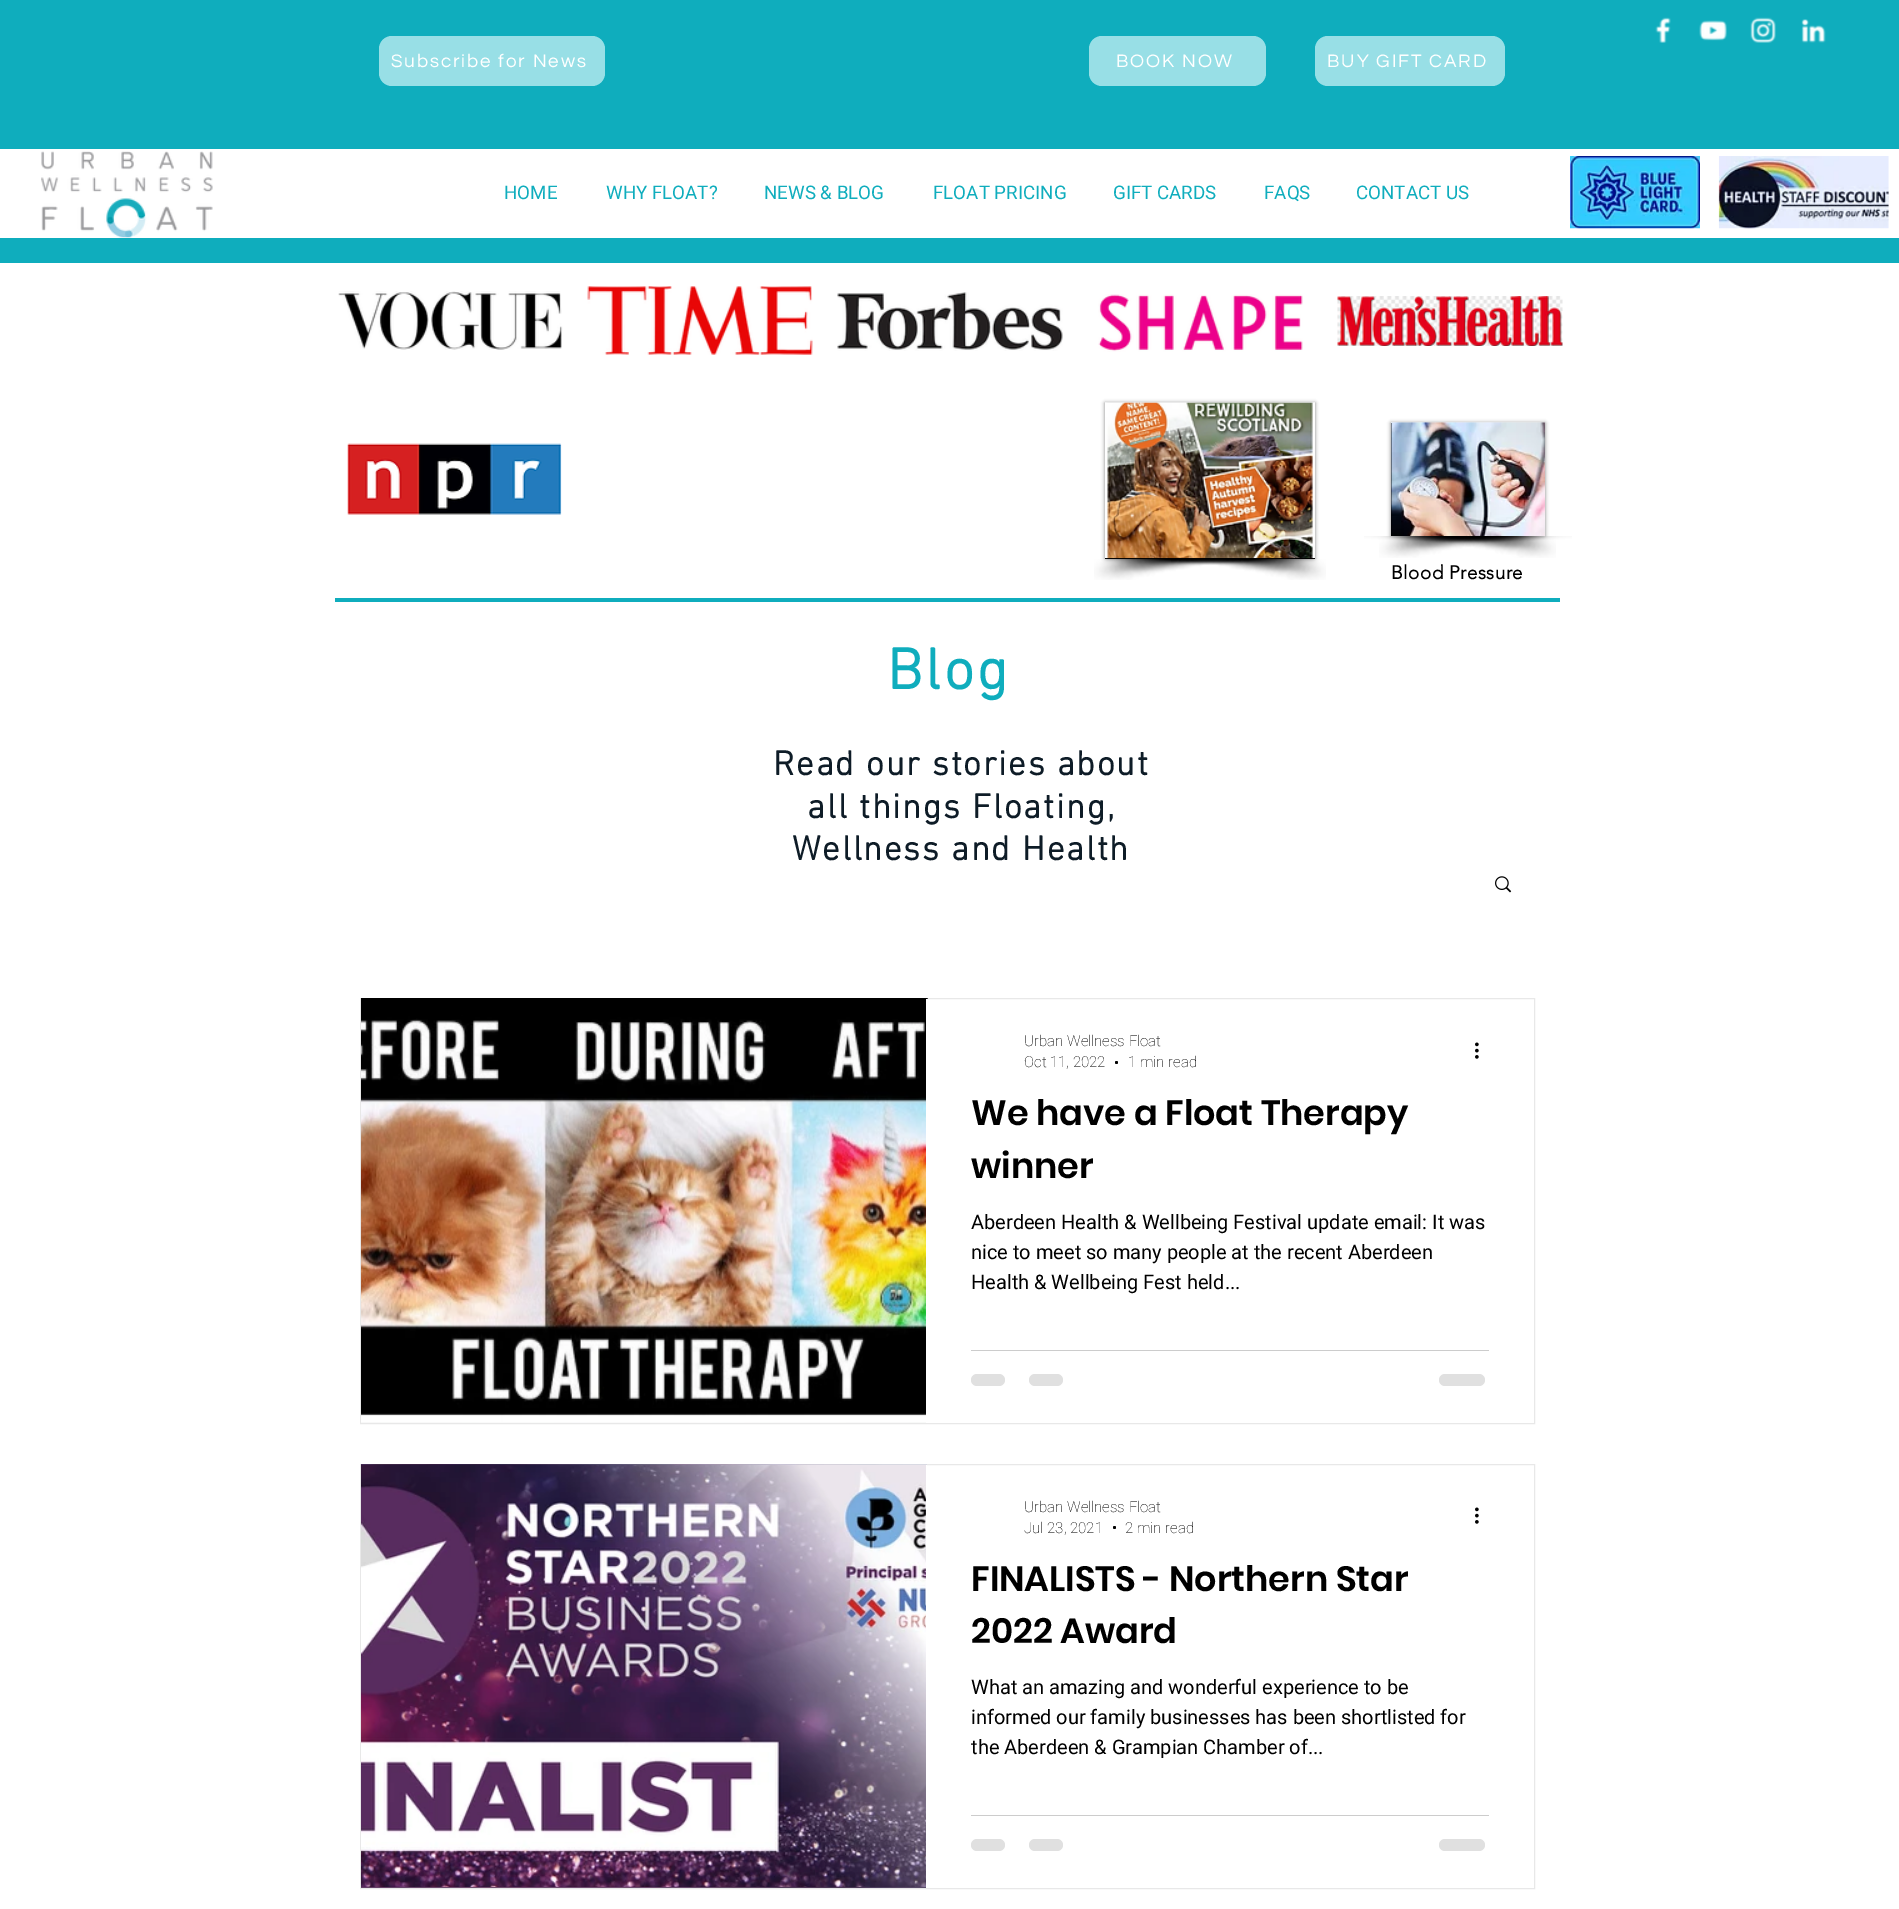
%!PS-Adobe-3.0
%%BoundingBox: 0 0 1899 1909
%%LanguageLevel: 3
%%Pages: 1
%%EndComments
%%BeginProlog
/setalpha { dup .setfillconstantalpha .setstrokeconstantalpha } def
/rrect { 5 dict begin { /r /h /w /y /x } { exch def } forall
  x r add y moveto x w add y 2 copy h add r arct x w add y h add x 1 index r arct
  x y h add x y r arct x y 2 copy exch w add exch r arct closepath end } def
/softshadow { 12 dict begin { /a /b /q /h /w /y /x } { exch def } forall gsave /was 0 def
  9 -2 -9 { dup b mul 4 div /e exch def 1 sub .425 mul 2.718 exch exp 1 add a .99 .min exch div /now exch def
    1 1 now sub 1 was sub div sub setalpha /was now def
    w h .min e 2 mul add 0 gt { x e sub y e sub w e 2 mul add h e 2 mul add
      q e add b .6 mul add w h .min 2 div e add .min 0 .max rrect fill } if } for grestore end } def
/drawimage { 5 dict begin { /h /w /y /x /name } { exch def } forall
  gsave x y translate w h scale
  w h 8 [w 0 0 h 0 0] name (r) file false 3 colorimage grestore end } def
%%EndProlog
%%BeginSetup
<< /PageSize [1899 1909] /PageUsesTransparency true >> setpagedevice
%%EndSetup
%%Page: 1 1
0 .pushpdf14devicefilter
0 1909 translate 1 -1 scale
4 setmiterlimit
1 setgray
0 0 1899 1909 rectfill
0.059 0.678 0.741 setrgbcolor
0 0 1899 263 rectfill
(images/1.raw) 1655 17 16 26 drawimage
(images/2.raw) 1699 20 28 21 drawimage
(images/3.raw) 1750 17 26 26 drawimage
(images/4.raw) 1801 19 25 24 drawimage
0.596 0.875 0.902 setrgbcolor
379 36 226 50 13 rrect fill
1089 36 177 50 13 rrect fill
1315 36 190 50 13 rrect fill
1 setgray
0 149 1899 89 rectfill
(images/5.raw) 41 151 172 87 drawimage
(images/6.raw) 1570 156 130 73 drawimage
(images/7.raw) 1718 156 171 73 drawimage
(images/8.raw) 338 291 225 59 drawimage
(images/9.raw) 587 286 226 69 drawimage
(images/10.raw) 837 292 226 59 drawimage
(images/11.raw) 1098 294 205 58 drawimage
(images/12.raw) 1337 296 226 50 drawimage
(images/13.raw) 347 443 215 72 drawimage
0 setgray
1105 403 210 156 0 2 0.5 softshadow
1105 558 210 1 rectfill
(images/14.raw) 1105 402 210 157 drawimage
(images/15.raw) 1094 559 186 21 drawimage
(images/16.raw) 1171 559 155 21 drawimage
1391 423 154 113 0 2 0.5 softshadow
1391 423 1 113 rectfill
(images/17.raw) 1391 422 154 114 drawimage
(images/19.raw) 1381 536 191 22 drawimage
(images/18.raw) 1364 536 192 22 drawimage
0.059 0.678 0.741 setrgbcolor
335 598 1225 4 rectfill
(images/20.raw) 1495 876 17 17 drawimage
0.91 setgray
360.5 998.5 1174 425 rectstroke
(images/21.raw) 361 998 567 425 drawimage
(images/22.raw) 361 998 567 425 drawimage
1 setgray
926 999 2 424 rectfill
0 setgray
newpath 1116.5 1062.5 1.5 0 360 arc closepath fill
(images/23.raw) 1475 1042 4 17 drawimage
0.8 setgray
971 1350 518 1 rectfill
0.878 setgray
971 1374 34 12 6 rrect fill
1029 1374 34 12 6 rrect fill
1439 1374 46 12 6 rrect fill
0.91 setgray
360.5 1464.5 1174 424 rectstroke
(images/24.raw) 361 1464 566 424 drawimage
(images/25.raw) 361 1465 565 422 drawimage
1 setgray
926 1465 1 423 rectfill
0 setgray
newpath 1114.5 1527.5 1.5 0 360 arc closepath fill
(images/23.raw) 1475 1507 4 17 drawimage
0.8 setgray
971 1815 518 1 rectfill
0.878 setgray
971 1839 34 12 6 rrect fill
1029 1839 34 12 6 rrect fill
1439 1839 46 12 6 rrect fill
/Questrial-Regular [18.75 0 0 -18.75 0 0] selectfont
1 setgray
391 67 moveto 1.9 0 (Subscribe for News) ashow
1116 67 moveto 1.9 0 (BOOK NOW) ashow
1327 67 moveto 1.9 0 (BUY GIFT CARD) ashow
/Roboto-Regular [18.75 0 0 -18.75 0 0] selectfont
0.059 0.678 0.741 setrgbcolor
504 199 moveto (HOME) show
606 199 moveto (WHY FLOAT?) show
764 199 moveto (NEWS & BLOG) show
933 199 moveto (FLOAT PRICING) show
1113 199 moveto (GIFT CARDS) show
1264 199 moveto (FAQS) show
1356 199 moveto (CONTACT US) show
/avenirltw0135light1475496-Bold [18.75 0 0 -18.75 0 0] selectfont
0 setgray
1391 579 moveto 0.5 0 (Blood Pressure) ashow
/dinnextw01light-Bold [59 0 0 -59 0 0] selectfont
0.059 0.678 0.741 setrgbcolor
887 689 moveto 3 0 (Blog) ashow
/dinnextw01light-Bold [35 0 0 -35 0 0] selectfont
0.055 0.11 0.153 setrgbcolor
773 775 moveto 1.75 0 (Read our stories about) ashow
807 818 moveto 1.75 0 (all things Floating,) ashow
792 860 moveto 1.75 0 (Wellness and Health) ashow
/Roboto-Thin [15 0 0 -15 0 0] selectfont
0 setgray
1024 1046 moveto (Urban Wellness Float) show
1024 1067 moveto (Oct 11, 2022) show
1128 1067 moveto (1 min read) show
/Poppins-SemiBold [35 0 0 -35 0 0] selectfont
971 1125 moveto (We have a Float Therapy) show
971 1178 moveto (winner) show
/Roboto-Regular [20 0 0 -20 0 0] selectfont
971 1229 moveto (Aberdeen Health & Wellbeing Festival update email: It was) show
971 1259 moveto (nice to meet so many people at the recent Aberdeen) show
971 1289 moveto (Health & Wellbeing Fest held...) show
/Roboto-Thin [15 0 0 -15 0 0] selectfont
1024 1512 moveto (Urban Wellness Float) show
1024 1533 moveto (Jul 23, 2021) show
1125 1533 moveto (2 min read) show
/Poppins-SemiBold [35 0 0 -35 0 0] selectfont
971 1591 moveto (FINALISTS - Northern Star) show
971 1643 moveto (2022 Award) show
/Roboto-Regular [20 0 0 -20 0 0] selectfont
971 1694 moveto (What an amazing and wonderful experience to be) show
971 1724 moveto (informed our family businesses has been shortlisted for) show
971 1754 moveto (the Aberdeen & Grampian Chamber of...) show
.poppdf14devicefilter showpage
%%EOF
